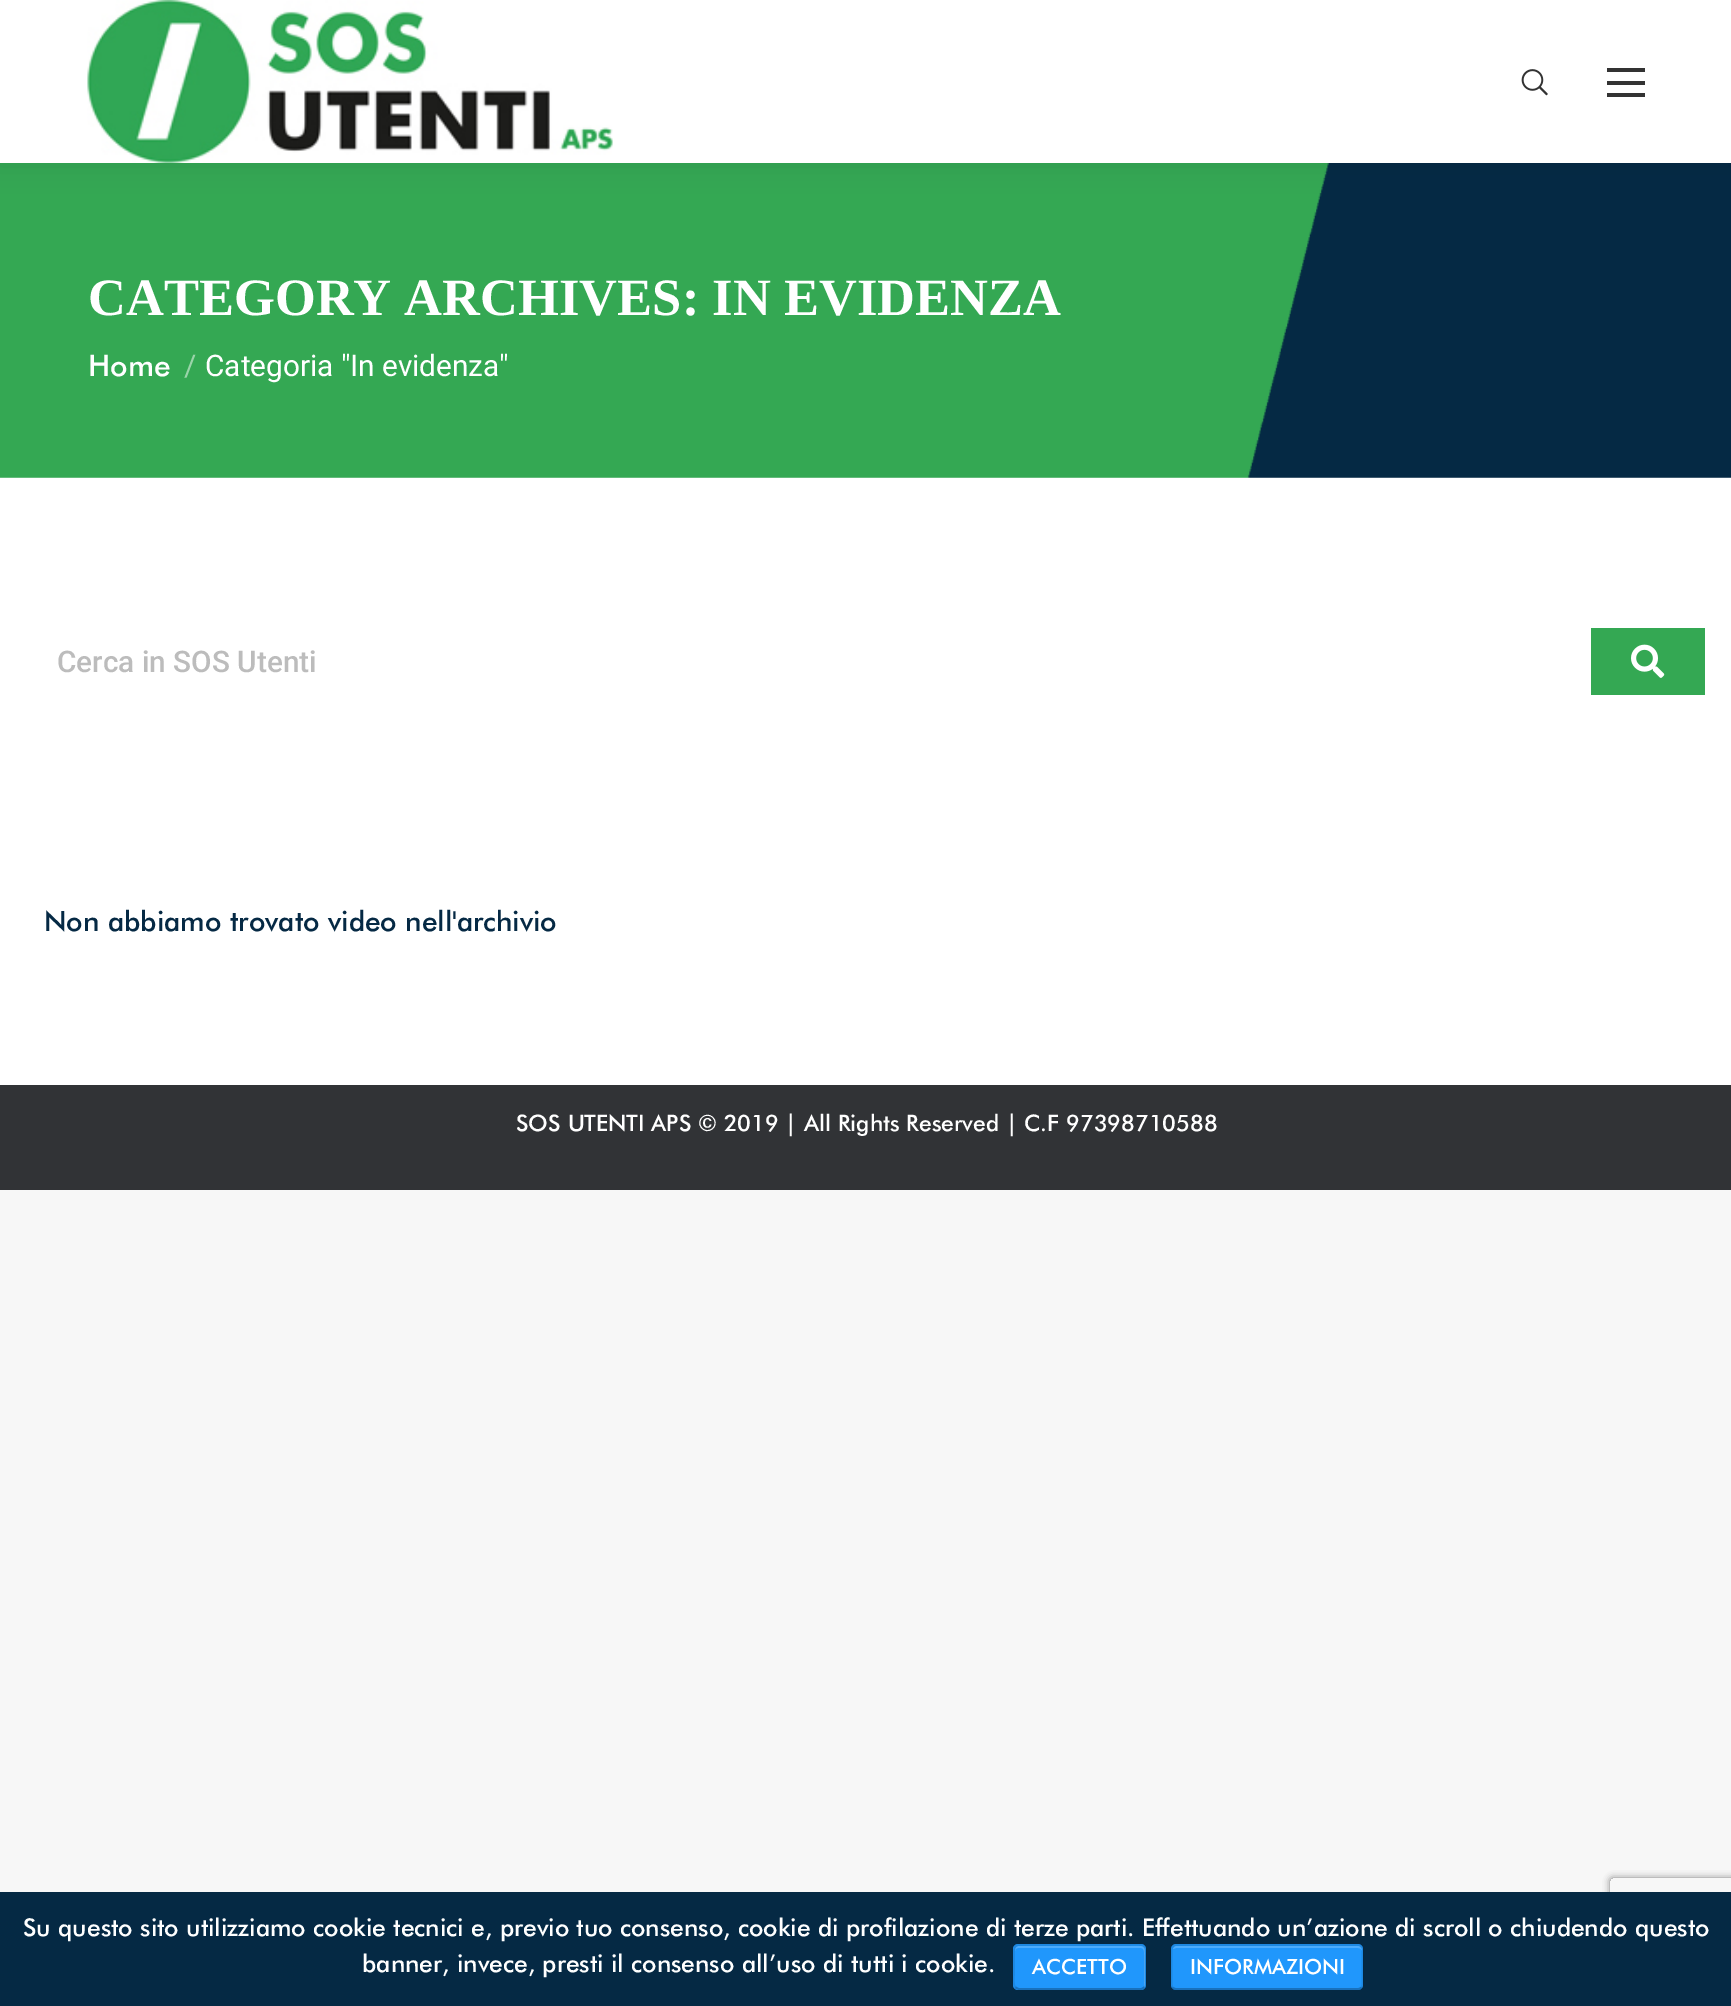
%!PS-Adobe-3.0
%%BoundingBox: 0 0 1731 2006
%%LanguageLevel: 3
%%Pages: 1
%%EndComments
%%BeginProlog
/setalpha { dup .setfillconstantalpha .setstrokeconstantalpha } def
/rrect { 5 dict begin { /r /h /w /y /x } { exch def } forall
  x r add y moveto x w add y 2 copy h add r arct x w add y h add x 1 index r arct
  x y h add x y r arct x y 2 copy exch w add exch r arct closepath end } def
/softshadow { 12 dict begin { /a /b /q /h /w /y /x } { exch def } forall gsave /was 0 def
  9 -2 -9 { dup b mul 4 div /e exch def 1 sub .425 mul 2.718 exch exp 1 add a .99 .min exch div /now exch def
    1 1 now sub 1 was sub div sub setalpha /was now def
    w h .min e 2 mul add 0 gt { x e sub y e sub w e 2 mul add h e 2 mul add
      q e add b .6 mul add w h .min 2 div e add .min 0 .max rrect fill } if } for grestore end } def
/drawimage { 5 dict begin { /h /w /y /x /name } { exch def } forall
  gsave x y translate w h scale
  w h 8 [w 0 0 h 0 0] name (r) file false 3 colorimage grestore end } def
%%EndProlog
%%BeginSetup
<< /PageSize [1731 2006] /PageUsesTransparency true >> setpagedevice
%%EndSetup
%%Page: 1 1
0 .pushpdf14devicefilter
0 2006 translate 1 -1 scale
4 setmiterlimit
0.969 setgray
0 0 1731 2006 rectfill
1 setgray
0 477 1731 608 rectfill
(images/3.raw) 0 163 1731 315 drawimage
0 setgray
-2 -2 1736 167 0 13 0.07 softshadow
1 setgray
0 0 1731 163 rectfill
(images/1.raw) 87 0 526 163 drawimage
(images/2.raw) 1521 69 27 27 drawimage
0.2 setgray
1607 81 38 4 rectfill
1607 68 38 4 rectfill
1607 93 38 4 rectfill
0.204 0.659 0.325 setrgbcolor
1591 628 114 67 rectfill
(images/4.raw) 1631 644 34 34 drawimage
0.192 0.2 0.212 setrgbcolor
0 1085 1731 105 rectfill
gsave
newpath 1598 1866 moveto 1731 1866 lineto 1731 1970 lineto 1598 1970 lineto closepath 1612.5 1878 moveto 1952.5 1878 lineto 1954 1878 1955 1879 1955 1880.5 curveto 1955 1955.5 lineto 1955 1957 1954 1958 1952.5 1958 curveto 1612.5 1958 lineto 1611 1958 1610 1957 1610 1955.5 curveto 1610 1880.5 lineto 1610 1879 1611 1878 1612.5 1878 curveto closepath eoclip newpath
0.502 setgray
1610 1878 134 80 2.5 3.5 1 softshadow
grestore
0.02 0.161 0.267 setrgbcolor
0 1892 1731 114 rectfill
0.125 0.592 0.988 setrgbcolor
1013 1944 133 46 5 rrect fill
0.302 0.675 0.992 setrgbcolor
newpath 1018 1948 moveto 1141 1948 lineto 1145 1948 1144 1954 1144 1957 curveto 1144 1987 lineto 1145 1986 1145 1985 1145 1984 curveto 1145 1950 lineto 1145 1948 1143 1946 1141 1946 curveto 1019 1946 lineto 1017 1946 1015 1948 1015 1950 curveto 1015 1951 lineto 1015 1949 1017 1948 1018 1948 curveto closepath fill
0.25 setalpha
0 setgray
1.8 setlinewidth
newpath 1144 1987.5 moveto 1141.5 1989 lineto 1039 1989 lineto 1018.5 1989 lineto 1015.5 1987.5 lineto stroke
0.1 setalpha
newpath 1015.5 1987.5 moveto 1012.5 1985 1014 1976 1014 1973 curveto 1014 1955.5 lineto 1014 1952 1013 1945 1018.5 1945 curveto 1120.5 1945 lineto 1149.5 1945 1145.5 1940.5 1145.5 1967 curveto 1145.5 1978.5 lineto 1145.5 1981 1146.5 1985.5 1144 1987.5 curveto stroke
1 setalpha
0.125 0.592 0.988 setrgbcolor
1171 1944 192 46 5 rrect fill
0.302 0.675 0.992 setrgbcolor
newpath 1176 1948 moveto 1358 1948 lineto 1360 1948 1362 1949 1362 1951 curveto 1362 1950 lineto 1362 1948 1360 1946 1358 1946 curveto 1177 1946 lineto 1175 1946 1174 1947 1173 1949 curveto closepath fill
0.25 setalpha
0 setgray
newpath 1361 1987.5 moveto 1360.5 1988.5 1359 1989 1358 1989 curveto 1176 1989 lineto 1175 1989 1173.5 1988.5 1173 1987.5 curveto stroke
0.1 setalpha
newpath 1173 1987.5 moveto 1172 1987 1171.5 1985.5 1171.5 1984.5 curveto 1171.5 1949.5 lineto 1171.5 1948.5 1172 1947 1173 1946.5 curveto 1173.5 1945.5 1175 1945 1176 1945 curveto 1358 1945 lineto 1359 1945 1360.5 1945.5 1361 1946.5 curveto 1362 1947 1362.5 1948.5 1362.5 1949.5 curveto 1362.5 1984.5 lineto 1362.5 1985.5 1362 1987 1361 1987.5 curveto stroke
/LiberationSerif-Bold [52.5 0 0 -52.5 0 0] selectfont
1 setalpha
1 setgray
88 315 moveto (CATEGORY ARCHIVES: IN EVIDENZA) show
/Futura-Medium [29.75 0 0 -29.75 0 0] selectfont
88 376 moveto (Home) show
/Roboto-Regular [29.75 0 0 -29.75 0 0] selectfont
0.604 0.831 0.663 setrgbcolor
184 376 moveto (/) show
1 setgray
205 376 moveto (Categoria "In evidenza") show
/Roboto-Medium [29.75 0 0 -29.75 0 0] selectfont
0.737 setgray
57 672 moveto (Cerca in SOS Utenti) show
/Futura-Medium [28 0 0 -28 0 0] selectfont
0.02 0.161 0.267 setrgbcolor
44 931 moveto (Non abbiamo trovato video nell'archivio) show
/Futura-Medium [22.75 0 0 -22.75 0 0] selectfont
1 setgray
516 1131 moveto (SOS UTENTI APS © 2019 | All Rights Reserved | C.F 97398710588) show
/Futura-Medium [24.5 0 0 -24.5 0 0] selectfont
23 1936 moveto (Su questo sito utilizziamo cookie tecnici e, previo tuo consenso, cookie di profilazione di terze parti. Effettuando un’azione di scroll o chiudendo questo) show
362 1972 moveto (banner, invece, presti il consenso all’uso di tutti i cookie.) show
/Futura-Medium [21 0 0 -21 0 0] selectfont
1032 1974 moveto (ACCETTO) show
1190 1974 moveto (INFORMAZIONI) show
.poppdf14devicefilter showpage
%%EOF
